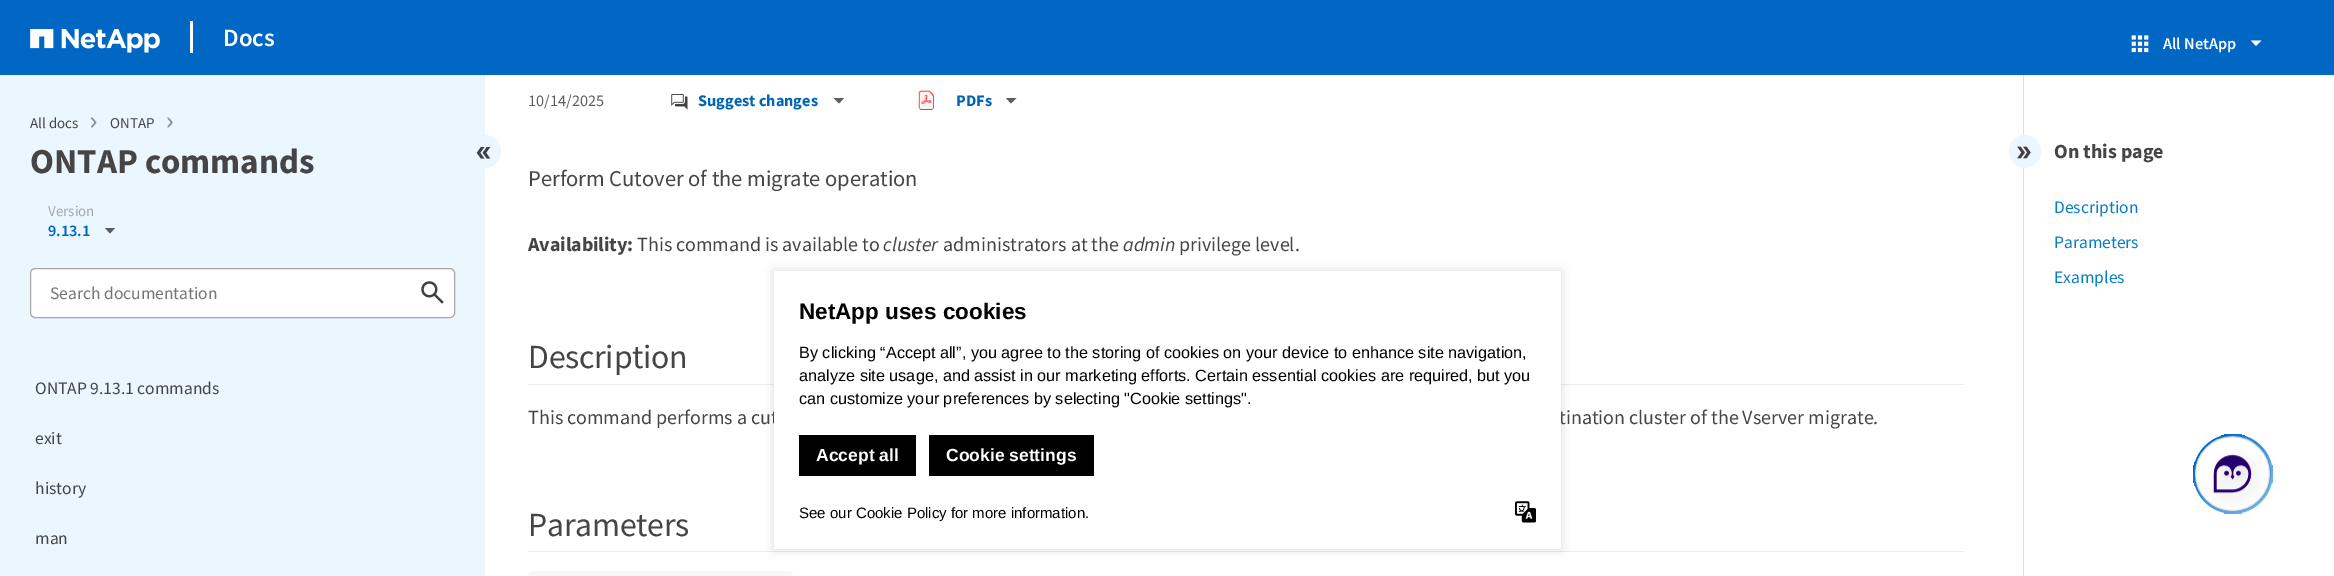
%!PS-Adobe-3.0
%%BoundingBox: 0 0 2334 576
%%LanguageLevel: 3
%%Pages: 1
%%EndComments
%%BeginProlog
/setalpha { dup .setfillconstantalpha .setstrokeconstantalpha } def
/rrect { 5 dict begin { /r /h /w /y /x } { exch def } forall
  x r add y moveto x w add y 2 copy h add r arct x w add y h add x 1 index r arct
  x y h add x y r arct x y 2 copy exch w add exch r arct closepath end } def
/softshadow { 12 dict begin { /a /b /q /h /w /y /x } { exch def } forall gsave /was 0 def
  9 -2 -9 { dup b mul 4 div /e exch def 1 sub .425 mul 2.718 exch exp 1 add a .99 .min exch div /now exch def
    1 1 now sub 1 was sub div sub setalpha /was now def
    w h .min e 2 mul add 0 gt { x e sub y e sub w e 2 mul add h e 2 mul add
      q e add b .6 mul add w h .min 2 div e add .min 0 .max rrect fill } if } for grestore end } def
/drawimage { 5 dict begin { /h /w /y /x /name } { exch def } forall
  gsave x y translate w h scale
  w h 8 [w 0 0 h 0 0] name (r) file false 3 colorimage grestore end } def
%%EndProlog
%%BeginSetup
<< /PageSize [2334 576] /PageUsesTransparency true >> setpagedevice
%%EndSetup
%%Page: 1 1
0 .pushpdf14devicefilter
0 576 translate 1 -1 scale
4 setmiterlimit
1 setgray
0 0 2334 576 rectfill
0 0.404 0.773 setrgbcolor
0 0 2334 75 rectfill
(images/1.raw) 30 29 130 24 drawimage
1 setgray
190 21 3 32 rectfill
(images/2.raw) 2131 35 18 18 drawimage
0.992 setgray
newpath 2256 46 moveto 2251 40.5 lineto 2261.5 40.5 lineto closepath fill
0.925 0.965 1 setrgbcolor
0 75 485 501 rectfill
(images/3.raw) 91 117 6 11 drawimage
(images/4.raw) 167 117 6 11 drawimage
469 135 32 33 16 rrect fill
(images/5.raw) 476 146 15 13 drawimage
0.369 setgray
newpath 110 233.5 moveto 105 228 lineto 115 228 lineto closepath fill
1 setgray
30.5 268.5 424 49 4.5 rrect gsave fill grestore
0.655 setgray
stroke
(images/6.raw) 421 281 23 23 drawimage
(images/7.raw) 671 94 17 16 drawimage
0.369 setgray
newpath 839 103.5 moveto 833.5 98 lineto 844 98 lineto closepath fill
(images/8.raw) 918 90 16 20 drawimage
newpath 1011 103.5 moveto 1006 98 lineto 1016.5 98 lineto closepath fill
0.918 0.925 0.937 setrgbcolor
528 384 1436 1 rectfill
528 551 1436 1 rectfill
0.969 0.969 0.973 setrgbcolor
528 571 265 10 5 rrect fill
0.878 setgray
2023 75 1 501 rectfill
0.925 0.965 1 setrgbcolor
2009 135 32 33 16 rrect fill
(images/9.raw) 2017 146 14 13 drawimage
gsave newpath 2233 474 40 0 360 arc closepath clip newpath
<< /ShadingType 2 /ColorSpace /DeviceRGB /Coords [2193 434 2273 514] /Extend [true true] /Function << /FunctionType 3 /Domain [0 1] /Functions [<< /FunctionType 2 /Domain [0 1] /C0 [0 0.404 0.773] /C1 [0 0.404 0.773] /N 1 >> << /FunctionType 2 /Domain [0 1] /C0 [0 0.404 0.773] /C1 [0.478 0.765 0.98] /N 1 >> << /FunctionType 2 /Domain [0 1] /C0 [0.478 0.765 0.98] /C1 [0.478 0.765 0.98] /N 1 >>] /Bounds [0.18 0.89] /Encode [0 1 0 1 0 1] >> >> shfill grestore
(images/10.raw) 2195 436 77 77 drawimage
0 setgray
774 271 787 278 0 5 0.15 softshadow
/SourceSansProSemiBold-SemiBold [25 0 0 -25 0 0] selectfont
1 setgray
223 46 moveto (Docs) show
/SourceSansProSemiBold-SemiBold [16.25 0 0 -16.25 0 0] selectfont
2163 49 moveto (All NetApp) show
/SourceSansPro-Regular [15 0 0 -15 0 0] selectfont
0.271 setgray
30 128 moveto (All docs) show
110 128 moveto (ONTAP) show
/SourceSansPro-Bold [35 0 0 -35 0 0] selectfont
30 173 moveto (ONTAP commands) show
/SourceSansPro-Regular [15 0 0 -15 0 0] selectfont
0.655 setgray
48 216 moveto (Version) show
/SourceSansProSemiBold-SemiBold [16.25 0 0 -16.25 0 0] selectfont
0 0.404 0.773 setrgbcolor
48 236 moveto (9.13.1) show
/SourceSansPro-Regular [17.5 0 0 -17.5 0 0] selectfont
0.459 setgray
50 299 moveto (Search documentation) show
0.271 setgray
35 394 moveto (ONTAP 9.13.1 commands) show
35 444 moveto (exit) show
35 494 moveto (history) show
35 544 moveto (man) show
/SourceSansPro-Regular [16.25 0 0 -16.25 0 0] selectfont
0.369 setgray
528 106 moveto (10/14/2025) show
/SourceSansPro-Bold [16.25 0 0 -16.25 0 0] selectfont
0 0.396 0.702 setrgbcolor
698 106 moveto (Suggest changes) show
956 106 moveto (PDFs) show
/SourceSansPro-Regular [22.5 0 0 -22.5 0 0] selectfont
0.271 setgray
528 186 moveto (Perform Cutover of the migrate operation) show
/SourceSansPro-Bold [20 0 0 -20 0 0] selectfont
528 251 moveto -0.1 0 (Availability:) ashow
/SourceSansPro-Regular [20 0 0 -20 0 0] selectfont
637 251 moveto (This command is available to) show
/SourceSansPro-Italic [20 0 0 -20 0 0] selectfont
883 251 moveto (cluster) show
/SourceSansPro-Regular [20 0 0 -20 0 0] selectfont
943 251 moveto (administrators at the) show
/SourceSansPro-Italic [20 0 0 -20 0 0] selectfont
1123 251 moveto (admin) show
/SourceSansPro-Regular [20 0 0 -20 0 0] selectfont
1179 251 moveto (privilege level.) show
/SourceSansPro-Regular [33.75 0 0 -33.75 0 0] selectfont
528 368 moveto -0.25 0 (Description) ashow
/SourceSansPro-Regular [20 0 0 -20 0 0] selectfont
528 424 moveto (This command performs a cut) show
1559 424 moveto (tination cluster of the Vserver migrate.) show
/SourceSansPro-Regular [33.75 0 0 -33.75 0 0] selectfont
528 536 moveto -0.25 0 (Parameters) ashow
/SourceSansPro-Bold [20 0 0 -20 0 0] selectfont
2054 158 moveto (On this page) show
/SourceSansPro-Regular [17.5 0 0 -17.5 0 0] selectfont
0.024 0.494 0.773 setrgbcolor
2054 213 moveto (Description) show
2054 248 moveto (Parameters) show
2054 283 moveto (Examples) show
1 setgray
774 271 787 278 rectfill
/LiberationSans-Bold [22.5 0 0 -22.5 0 0] selectfont
0 setgray
799 319 moveto (NetApp uses cookies) show
/LiberationSans-Regular [16.25 0 0 -16.25 0 0] selectfont
799 358 moveto (By clicking “Accept all”, you agree to the storing of cookies on your device to enhance site navigation,) show
799 381 moveto (analyze site usage, and assist in our marketing efforts. Certain essential cookies are required, but you) show
799 404 moveto (can customize your preferences by selecting "Cookie settings".) show
799 435 117 41 rectfill
/LiberationSans-Bold [17.5 0 0 -17.5 0 0] selectfont
1 setgray
816 461 moveto (Accept all) show
0 setgray
929 435 165 41 rectfill
1 setgray
946 461 moveto (Cookie settings) show
/LiberationSans-Regular [15 0 0 -15 0 0] selectfont
0 setgray
799 518 moveto (See our Cookie Policy for more information.) show
(images/11.raw) 1515 501 21 22 drawimage
.poppdf14devicefilter showpage
%%EOF
